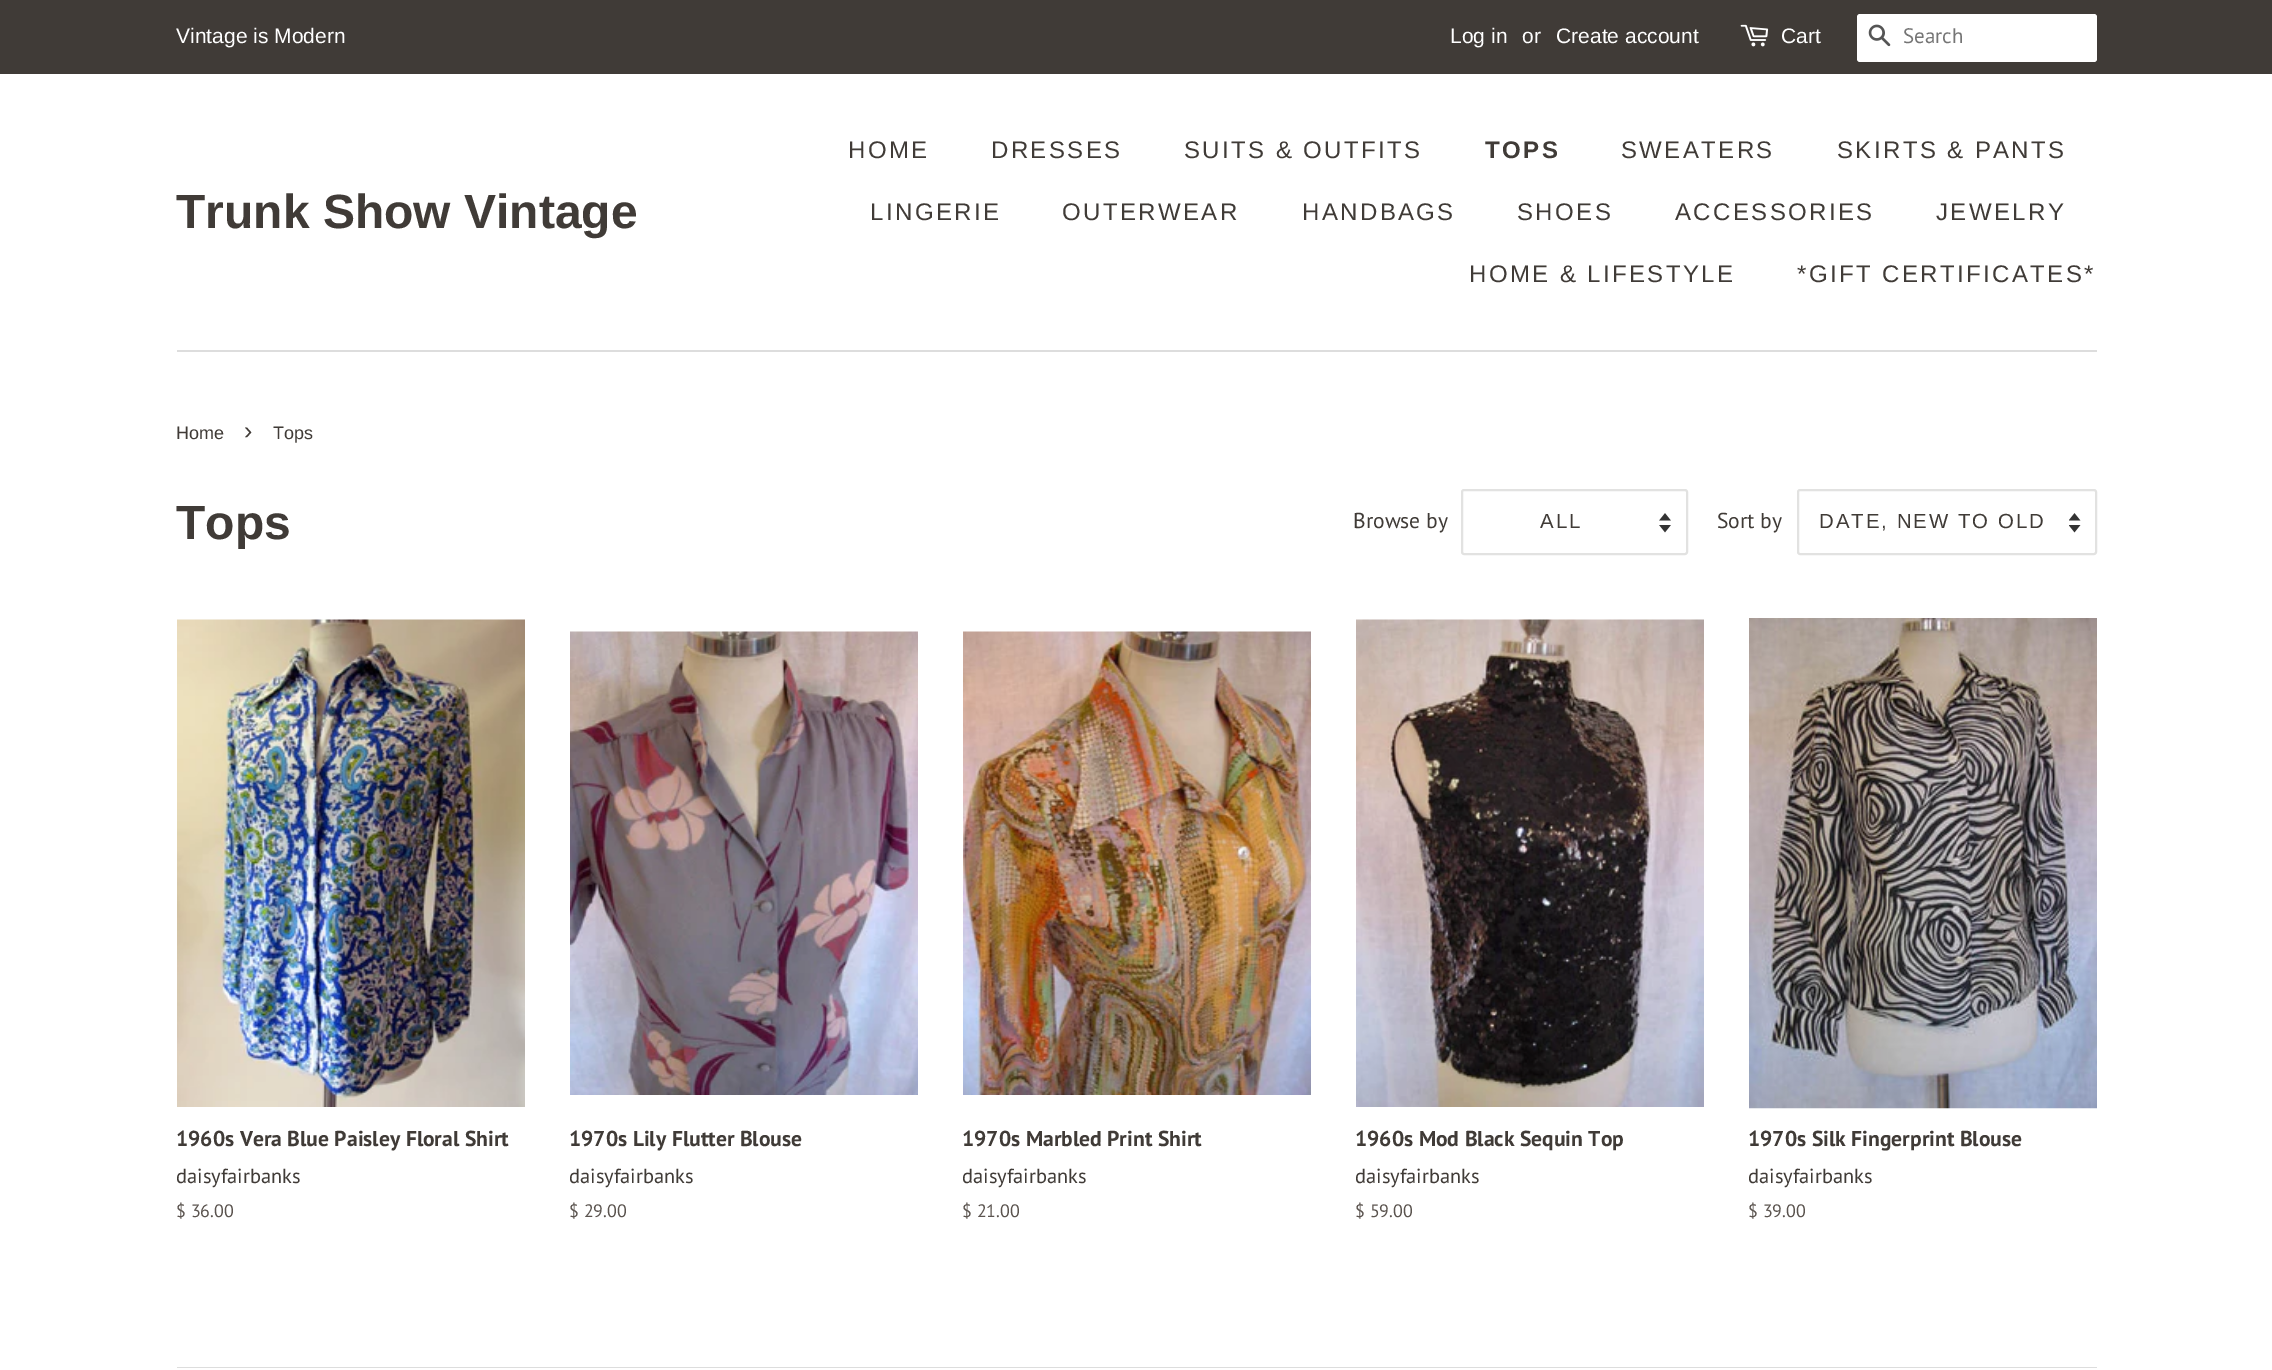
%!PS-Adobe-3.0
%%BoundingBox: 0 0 2272 1370
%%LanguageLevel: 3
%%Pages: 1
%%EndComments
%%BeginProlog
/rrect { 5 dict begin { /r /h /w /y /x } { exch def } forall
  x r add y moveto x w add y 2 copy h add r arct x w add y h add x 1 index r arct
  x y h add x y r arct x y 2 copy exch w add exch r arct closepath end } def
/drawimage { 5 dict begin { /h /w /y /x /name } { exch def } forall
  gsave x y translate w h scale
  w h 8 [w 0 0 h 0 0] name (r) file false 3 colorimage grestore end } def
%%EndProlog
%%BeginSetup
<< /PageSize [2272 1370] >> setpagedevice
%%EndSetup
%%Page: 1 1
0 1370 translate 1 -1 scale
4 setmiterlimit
1 setgray
0 0 2272 1370 rectfill
0.251 0.231 0.216 setrgbcolor
0 0 2272 74 rectfill
(images/1.raw) 1740 24 29 23 drawimage
1 setgray
1857 14 240 48 3 rrect fill
(images/2.raw) 1868 24 23 23 drawimage
0.867 setgray
177 350 1920 2 rectfill
(images/3.raw) 1659 513 12 20 drawimage
0.886 0.886 0.882 setrgbcolor
2 setlinewidth
1462 490 225 64 2 rrect stroke
(images/4.raw) 2069 513 12 20 drawimage
1798 490 298 64 2 rrect stroke
(images/5.raw) 177 619 348 488 drawimage
(images/6.raw) 570 631 348 464 drawimage
(images/7.raw) 963 631 348 464 drawimage
(images/8.raw) 1356 619 348 488 drawimage
(images/9.raw) 1749 618 348 491 drawimage
0.867 setgray
177 1367 1920 1 rectfill
/LiberationSans-Regular [21 0 0 -21 0 0] selectfont
1 setgray
176 43 moveto (Vintage is Modern) show
1450 43 moveto (Log in) show
1522 43 moveto (or) show
1556 43 moveto (Create account) show
1781 43 moveto (Cart) show
/PTSans-Regular [21 0 0 -21 0 0] selectfont
0.459 setgray
1903 43 moveto (Search) show
/LiberationSans-Bold [48 0 0 -48 0 0] selectfont
0.251 0.231 0.216 setrgbcolor
176 228 moveto (Trunk Show Vintage) show
/LiberationSans-Regular [24 0 0 -24 0 0] selectfont
848 158 moveto 2.4 0 (HOME) ashow
991 158 moveto 2.4 0 (DRESSES) ashow
1184 158 moveto 2.4 0 (SUITS & OUTFITS) ashow
/LiberationSans-Bold [24 0 0 -24 0 0] selectfont
1485 158 moveto 2.4 0 (TOPS) ashow
/LiberationSans-Regular [24 0 0 -24 0 0] selectfont
1621 158 moveto 2.4 0 (SWEATERS) ashow
1837 158 moveto 2.4 0 (SKIRTS & PANTS) ashow
870 220 moveto 2.4 0 (LINGERIE) ashow
1062 220 moveto 2.4 0 (OUTERWEAR) ashow
1302 220 moveto 2.4 0 (HANDBAGS) ashow
1517 220 moveto 2.4 0 (SHOES) ashow
1675 220 moveto 2.4 0 (ACCESSORIES) ashow
1936 220 moveto 2.4 0 (JEWELRY) ashow
1469 282 moveto 2.4 0 (HOME & LIFESTYLE) ashow
1797 282 moveto 2.4 0 (*GIFT CERTIFICATES*) ashow
/LiberationSans-Regular [18 0 0 -18 0 0] selectfont
176 439 moveto (Home) show
/LiberationSans-Regular [25 0 0 -25 0 0] selectfont
244 439 moveto (›) show
/LiberationSans-Regular [18 0 0 -18 0 0] selectfont
273 439 moveto (Tops) show
/LiberationSans-Bold [48 0 0 -48 0 0] selectfont
176 539 moveto (Tops) show
/PTSans-Regular [21.6 0 0 -21.6 0 0] selectfont
1353 528 moveto (Browse by) show
/LiberationSans-Regular [20.4 0 0 -20.4 0 0] selectfont
1540 528 moveto 2 0 (ALL) ashow
/PTSans-Regular [21.6 0 0 -21.6 0 0] selectfont
1717 528 moveto (Sort by) show
/LiberationSans-Regular [20.4 0 0 -20.4 0 0] selectfont
1819 528 moveto 2 0 (DATE, NEW TO OLD) ashow
/PTSans-Bold [21.6 0 0 -21.6 0 0] selectfont
176 1146 moveto (1960s Vera Blue Paisley Floral Shirt) show
/PTSans-Regular [20.4 0 0 -20.4 0 0] selectfont
176 1183 moveto (daisyfairbanks) show
/PTSans-Regular [18 0 0 -18 0 0] selectfont
0.357 0.329 0.31 setrgbcolor
176 1217 moveto ($ 36.00) show
/PTSans-Bold [21.6 0 0 -21.6 0 0] selectfont
0.251 0.231 0.216 setrgbcolor
569 1146 moveto (1970s Lily Flutter Blouse) show
/PTSans-Regular [20.4 0 0 -20.4 0 0] selectfont
569 1183 moveto (daisyfairbanks) show
/PTSans-Regular [18 0 0 -18 0 0] selectfont
0.357 0.329 0.31 setrgbcolor
569 1217 moveto ($ 29.00) show
/PTSans-Bold [21.6 0 0 -21.6 0 0] selectfont
0.251 0.231 0.216 setrgbcolor
962 1146 moveto (1970s Marbled Print Shirt) show
/PTSans-Regular [20.4 0 0 -20.4 0 0] selectfont
962 1183 moveto (daisyfairbanks) show
/PTSans-Regular [18 0 0 -18 0 0] selectfont
0.357 0.329 0.31 setrgbcolor
962 1217 moveto ($ 21.00) show
/PTSans-Bold [21.6 0 0 -21.6 0 0] selectfont
0.251 0.231 0.216 setrgbcolor
1355 1146 moveto (1960s Mod Black Sequin Top) show
/PTSans-Regular [20.4 0 0 -20.4 0 0] selectfont
1355 1183 moveto (daisyfairbanks) show
/PTSans-Regular [18 0 0 -18 0 0] selectfont
0.357 0.329 0.31 setrgbcolor
1355 1217 moveto ($ 59.00) show
/PTSans-Bold [21.6 0 0 -21.6 0 0] selectfont
0.251 0.231 0.216 setrgbcolor
1748 1146 moveto (1970s Silk Fingerprint Blouse) show
/PTSans-Regular [20.4 0 0 -20.4 0 0] selectfont
1748 1183 moveto (daisyfairbanks) show
/PTSans-Regular [18 0 0 -18 0 0] selectfont
0.357 0.329 0.31 setrgbcolor
1748 1217 moveto ($ 39.00) show
showpage
%%EOF
